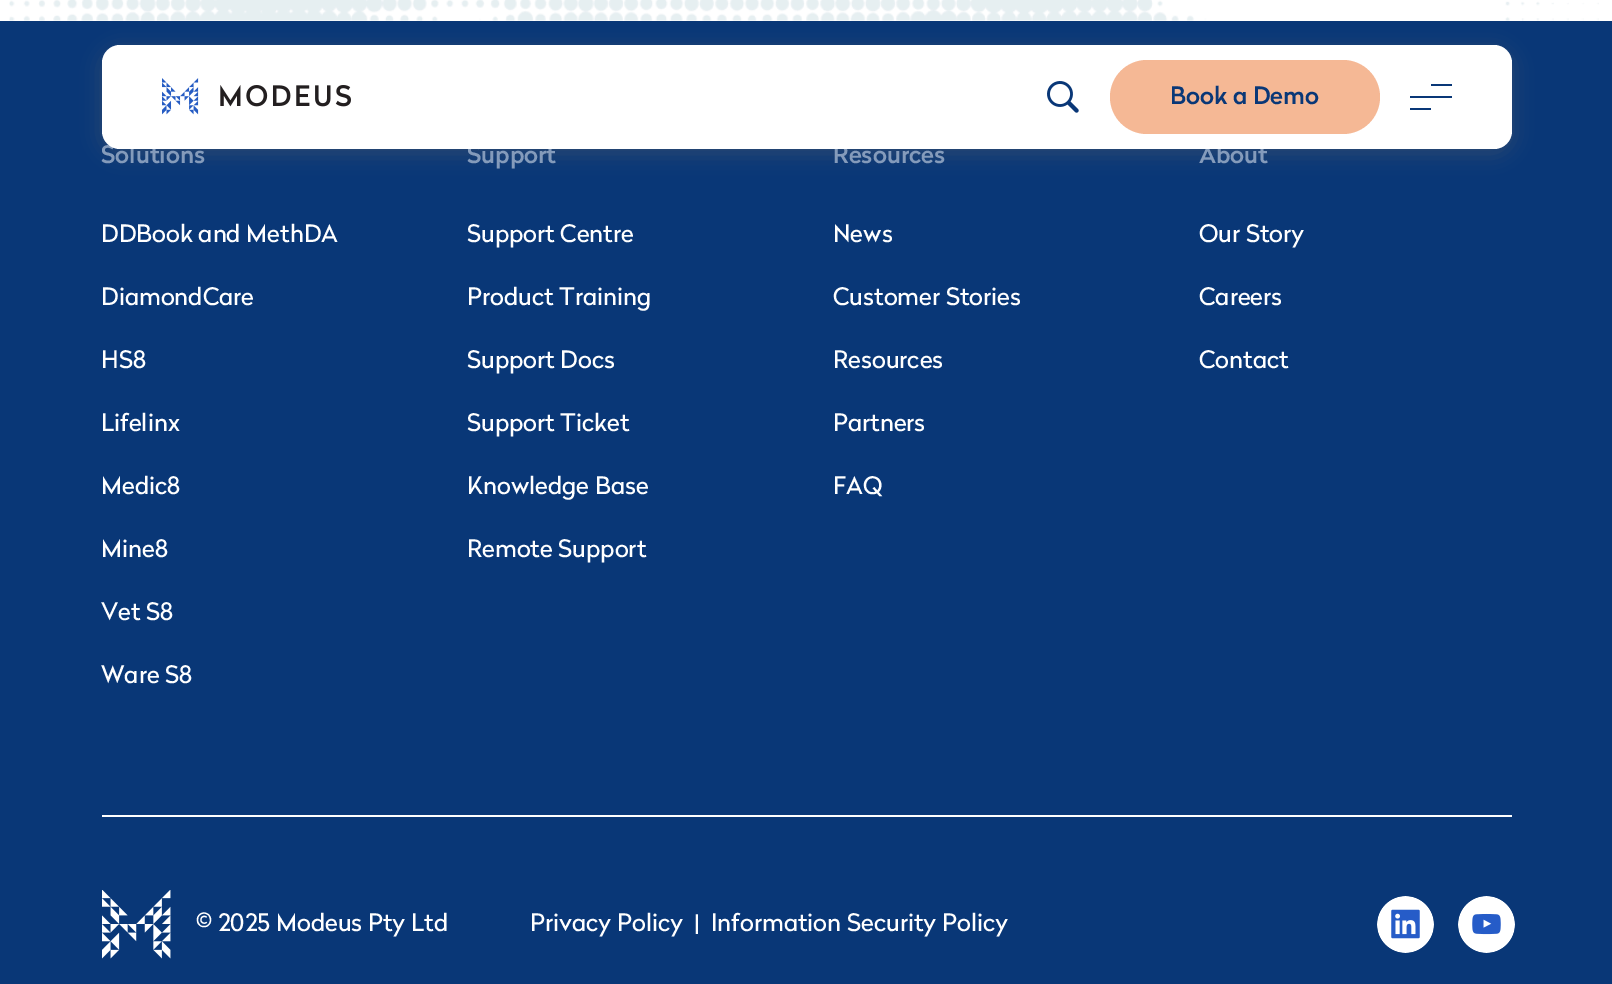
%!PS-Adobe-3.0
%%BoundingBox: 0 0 1612 984
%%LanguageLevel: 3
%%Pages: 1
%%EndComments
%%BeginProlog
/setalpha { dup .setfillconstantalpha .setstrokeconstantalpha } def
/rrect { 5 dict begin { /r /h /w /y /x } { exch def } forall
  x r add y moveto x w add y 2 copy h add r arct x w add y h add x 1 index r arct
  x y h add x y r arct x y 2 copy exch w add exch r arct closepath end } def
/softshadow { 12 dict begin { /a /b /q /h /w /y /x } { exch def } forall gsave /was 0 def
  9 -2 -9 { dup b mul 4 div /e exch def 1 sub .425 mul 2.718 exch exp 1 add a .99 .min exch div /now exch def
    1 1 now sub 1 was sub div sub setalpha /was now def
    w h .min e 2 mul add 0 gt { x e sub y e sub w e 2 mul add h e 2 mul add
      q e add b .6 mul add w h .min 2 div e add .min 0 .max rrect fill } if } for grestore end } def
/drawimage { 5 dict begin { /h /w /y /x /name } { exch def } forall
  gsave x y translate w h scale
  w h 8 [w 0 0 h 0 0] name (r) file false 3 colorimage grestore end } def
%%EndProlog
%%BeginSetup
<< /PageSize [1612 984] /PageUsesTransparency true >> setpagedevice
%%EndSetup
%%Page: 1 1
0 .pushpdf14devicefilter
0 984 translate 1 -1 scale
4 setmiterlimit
1 setgray
0 0 1612 984 rectfill
(images/1.raw) 9 0 1590 21 drawimage
0.035 0.216 0.467 setrgbcolor
0 21 1612 963 rectfill
0.345 0.369 0.412 setrgbcolor
102 50 1410 103 18 10 0.45 softshadow
1 setgray
102 815 1410 2 rectfill
(images/4.raw) 102 890 69 69 drawimage
(images/5.raw) 1377 896 57 57 drawimage
(images/6.raw) 1458 896 57 57 drawimage
/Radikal-Medium [24 0 0 -24 0 0] selectfont
0.518 0.608 0.733 setrgbcolor
101 163 moveto (Solutions) show
/Radikal-Regular [24 0 0 -24 0 0] selectfont
1 setgray
101 242 moveto (DDBook and MethDA) show
101 305 moveto (DiamondCare) show
101 368 moveto (HS8) show
101 431 moveto (Lifelinx) show
101 494 moveto (Medic8) show
101 557 moveto (Mine8) show
101 620 moveto (Vet S8) show
101 683 moveto (Ware S8) show
/Radikal-Medium [24 0 0 -24 0 0] selectfont
0.518 0.608 0.733 setrgbcolor
467 163 moveto (Support) show
/Radikal-Regular [24 0 0 -24 0 0] selectfont
1 setgray
467 242 moveto (Support Centre) show
467 305 moveto (Product Training) show
467 368 moveto (Support Docs) show
467 431 moveto (Support Ticket) show
467 494 moveto (Knowledge Base) show
467 557 moveto (Remote Support) show
/Radikal-Medium [24 0 0 -24 0 0] selectfont
0.518 0.608 0.733 setrgbcolor
833 163 moveto (Resources) show
/Radikal-Regular [24 0 0 -24 0 0] selectfont
1 setgray
833 242 moveto (News) show
833 305 moveto (Customer Stories) show
833 368 moveto (Resources) show
833 431 moveto (Partners) show
833 494 moveto (FAQ) show
/Radikal-Medium [24 0 0 -24 0 0] selectfont
0.518 0.608 0.733 setrgbcolor
1199 163 moveto (About) show
1 setgray
102 45 1410 104 18 rrect fill
0.961 0.722 0.584 setrgbcolor
1110 60 270 74 37 rrect fill
0.035 0.216 0.467 setrgbcolor
1170 104 moveto (Book a Demo) show
1410 108 21 2 rectfill
1431 84 21 2 rectfill
1410 96 42 2 rectfill
(images/3.raw) 1047 81 32 32 drawimage
(images/2.raw) 162 78 189 37 drawimage
/Radikal-Regular [24 0 0 -24 0 0] selectfont
1 setgray
1199 242 moveto (Our Story) show
1199 305 moveto (Careers) show
1199 368 moveto (Contact) show
196 931 moveto (© 2025 Modeus Pty Ltd) show
530 931 moveto (Privacy Policy) show
694 931 moveto (|) show
711 931 moveto (Information Security Policy) show
.poppdf14devicefilter showpage
%%EOF
